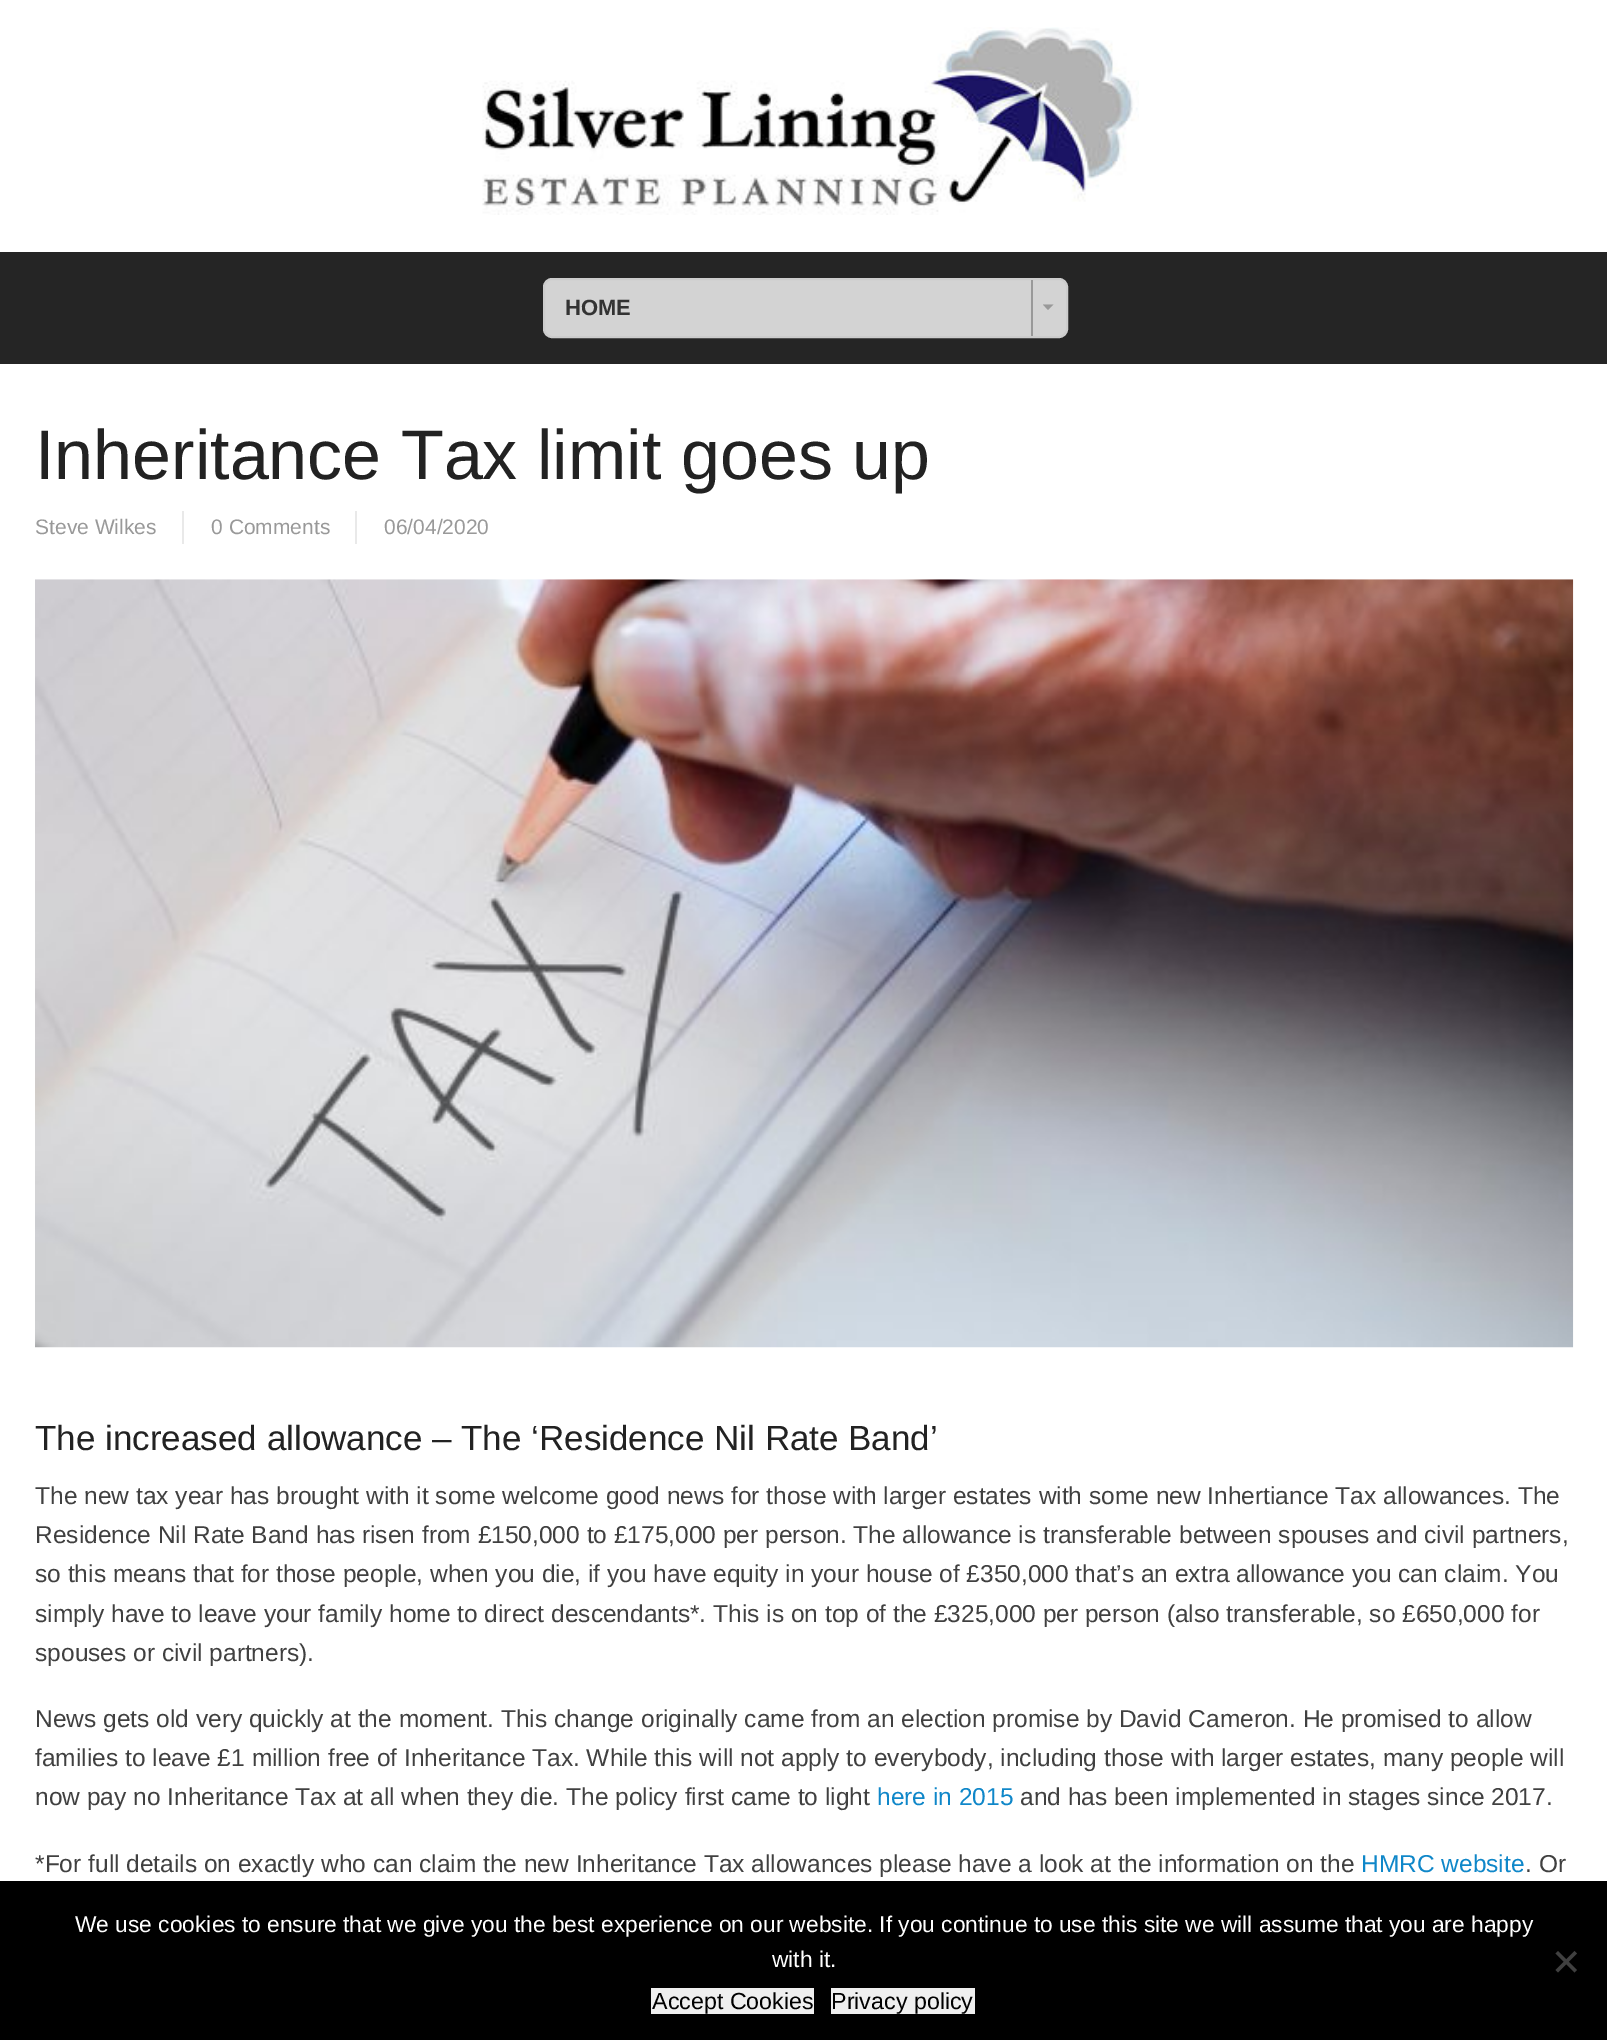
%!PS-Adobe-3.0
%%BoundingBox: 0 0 1607 2040
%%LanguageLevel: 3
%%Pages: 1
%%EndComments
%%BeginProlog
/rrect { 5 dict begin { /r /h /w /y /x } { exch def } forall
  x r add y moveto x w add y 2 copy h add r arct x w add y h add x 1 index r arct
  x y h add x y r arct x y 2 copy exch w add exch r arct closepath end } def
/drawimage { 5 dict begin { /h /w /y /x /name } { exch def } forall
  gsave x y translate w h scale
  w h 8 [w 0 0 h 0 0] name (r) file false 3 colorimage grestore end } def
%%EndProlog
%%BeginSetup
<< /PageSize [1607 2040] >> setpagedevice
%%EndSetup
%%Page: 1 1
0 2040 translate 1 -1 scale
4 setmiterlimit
1 setgray
0 0 1607 2040 rectfill
(images/1.raw) 482 27 657 188 drawimage
0.145 setgray
0 252 1607 112 rectfill
0.827 setgray
544 279 523 58 8 rrect gsave fill grestore
0.8 setgray
2 setlinewidth
stroke
0.6 setgray
1031 280 2 56 rectfill
newpath 1043 304.5 moveto 1053.5 304.5 lineto 1048 310 lineto closepath fill
0.914 setgray
355 511 2 33 rectfill
182 511 2 33 rectfill
(images/2.raw) 35 579 1539 769 drawimage
0 setgray
0 1881 1607 159 rectfill
0.251 setgray
newpath 1574.5 1951 moveto 1577 1953.5 lineto 1558 1972.5 lineto 1555.5 1970 lineto closepath fill
newpath 1555.5 1953.5 moveto 1558 1951 lineto 1577 1970 lineto 1574.5 1972.5 lineto closepath fill
0.937 setgray
651 1988 163 26 rectfill
831 1988 144 26 rectfill
/LiberationSans-Bold [22 0 0 -22 0 0] selectfont
0.2 setgray
565 315 moveto (HOME) show
/LiberationSans-Regular [70 0 0 -70 0 0] selectfont
0.133 setgray
35 479 moveto (Inheritance Tax limit goes up) show
/LiberationSans-Regular [21 0 0 -21 0 0] selectfont
0.6 setgray
35 534 moveto (Steve Wilkes) show
211 534 moveto (0 Comments) show
384 534 moveto (06/04/2020) show
/LiberationSans-Regular [35 0 0 -35 0 0] selectfont
0.133 setgray
35 1450 moveto (The increased allowance – The ‘Residence Nil Rate Band’) show
/LiberationSans-Regular [24.5 0 0 -24.5 0 0] selectfont
0.251 setgray
35 1504 moveto (The new tax year has brought with it some welcome good news for those with larger estates with some new Inhertiance Tax allowances. The) show
35 1543 moveto (Residence Nil Rate Band has risen from £150,000 to £175,000 per person. The allowance is transferable between spouses and civil partners,) show
35 1582 moveto (so this means that for those people, when you die, if you have equity in your house of £350,000 that’s an extra allowance you can claim. You) show
35 1622 moveto (simply have to leave your family home to direct descendants*. This is on top of the £325,000 per person \(also transferable, so £650,000 for) show
35 1661 moveto (spouses or civil partners\).) show
35 1727 moveto (News gets old very quickly at the moment. This change originally came from an election promise by David Cameron. He promised to allow) show
35 1766 moveto (families to leave £1 million free of Inheritance Tax. While this will not apply to everybody, including those with larger estates, many people will) show
35 1805 moveto (now pay no Inheritance Tax at all when they die. The policy first came to light) show
0.059 0.529 0.788 setrgbcolor
877 1805 moveto (here in 2015) show
0.251 setgray
1020 1805 moveto (and has been implemented in stages since 2017.) show
35 1872 moveto (*For full details on exactly who can claim the new Inheritance Tax allowances please have a look at the information on the) show
0.059 0.529 0.788 setrgbcolor
1361 1872 moveto (HMRC website) show
0.251 setgray
1525 1872 moveto (. Or) show
/LiberationSans-Regular [22.75 0 0 -22.75 0 0] selectfont
1 setgray
75 1932 moveto (We use cookies to ensure that we give you the best experience on our website. If you continue to use this site we will assume that you are happy) show
772 1967 moveto (with it.) show
/LiberationSans-Regular [23.25 0 0 -23.25 0 0] selectfont
0 setgray
652 2009 moveto (Accept Cookies) show
831 2009 moveto (Privacy policy) show
showpage
%%EOF
